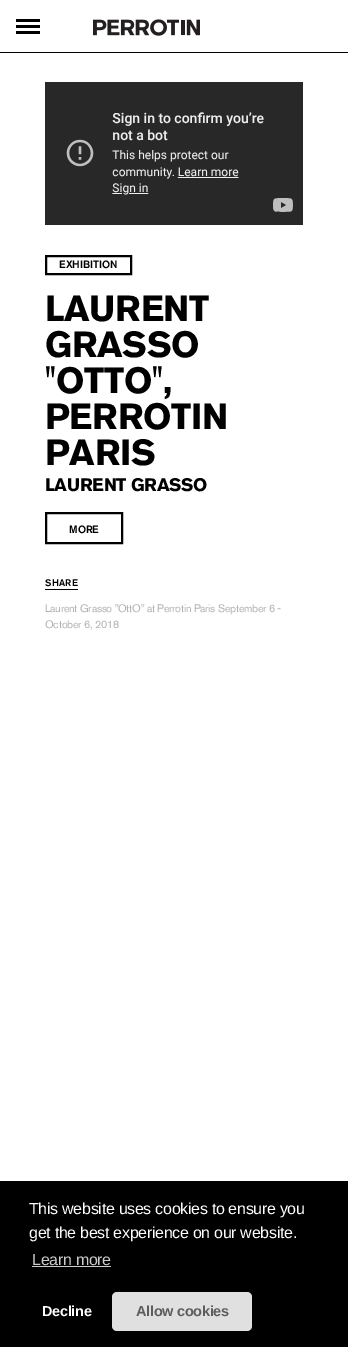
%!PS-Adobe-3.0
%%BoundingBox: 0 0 348 1347
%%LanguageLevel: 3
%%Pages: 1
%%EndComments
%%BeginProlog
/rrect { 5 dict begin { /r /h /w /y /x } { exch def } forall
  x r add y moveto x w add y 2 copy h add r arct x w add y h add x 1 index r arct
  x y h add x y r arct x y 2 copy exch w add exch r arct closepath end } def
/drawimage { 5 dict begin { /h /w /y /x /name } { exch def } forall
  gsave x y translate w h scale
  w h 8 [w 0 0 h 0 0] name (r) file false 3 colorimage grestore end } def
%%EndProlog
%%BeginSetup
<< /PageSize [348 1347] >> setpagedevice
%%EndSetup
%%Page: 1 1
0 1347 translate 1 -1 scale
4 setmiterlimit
1 setgray
0 0 348 1347 rectfill
0 setgray
0 52 348 1 rectfill
16 19 24 3 rectfill
16 25 24 3 rectfill
16 31 24 3 rectfill
(images/1.raw) 93 19 107 17 drawimage
(images/2.raw) 45 82 258 143 drawimage
2 setlinewidth
46 256 85 18 rectstroke
46 513 76 30 rectstroke
45 589 33 1 rectfill
0 1181 348 166 rectfill
0.8 setgray
32 1266 79 1 rectfill
0.878 setgray
112 1292 140 39 5 rrect fill
/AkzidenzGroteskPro-Medium [10.5 0 0 -10.5 0 0] selectfont
0 setgray
59 268 moveto (EXHIBITION) show
/AkzidenzGroteskPro-Bold [36 0 0 -36 0 0] selectfont
45 321 moveto -0.3 0 (LAURENT) ashow
45 357 moveto -0.3 0 (GRASSO) ashow
45 393 moveto -0.3 0 (''OTTO'',) ashow
45 429 moveto -0.3 0 (PERROTIN) ashow
45 465 moveto -0.3 0 (PARIS) ashow
/AkzidenzGroteskPro-Bold [18 0 0 -18 0 0] selectfont
45 491 moveto -0.3 0 (LAURENT GRASSO) ashow
/AkzidenzGroteskPro-Medium [10.5 0 0 -10.5 0 0] selectfont
69 533 moveto (MORE) show
/AkzidenzGroteskPro-Medium [9.5 0 0 -9.5 0 0] selectfont
45 586 moveto 0.25 0 (SHARE) ashow
/AkzidenzGroteskPro-Regular [10.8 0 0 -10.8 0 0] selectfont
0.698 setgray
45 612 moveto -0.3 0 (Laurent Grasso "OttO" at Perrotin Paris September 6 -) ashow
45 628 moveto -0.3 0 (October 6, 2018) ashow
/LiberationSans-Regular [16 0 0 -16 0 0] selectfont
1 setgray
29 1214 moveto -0.3 0 (This website uses cookies to ensure you) ashow
29 1238 moveto -0.3 0 (get the best experience on our website.) ashow
0.8 setgray
32 1265 moveto -0.3 0 (Learn more) ashow
/LiberationSans-Bold [14.5 0 0 -14.5 0 0] selectfont
1 setgray
42 1316 moveto -0.3 0 (Decline) ashow
0.369 0.361 0.361 setrgbcolor
136 1316 moveto -0.3 0 (Allow cookies) ashow
showpage
%%EOF
